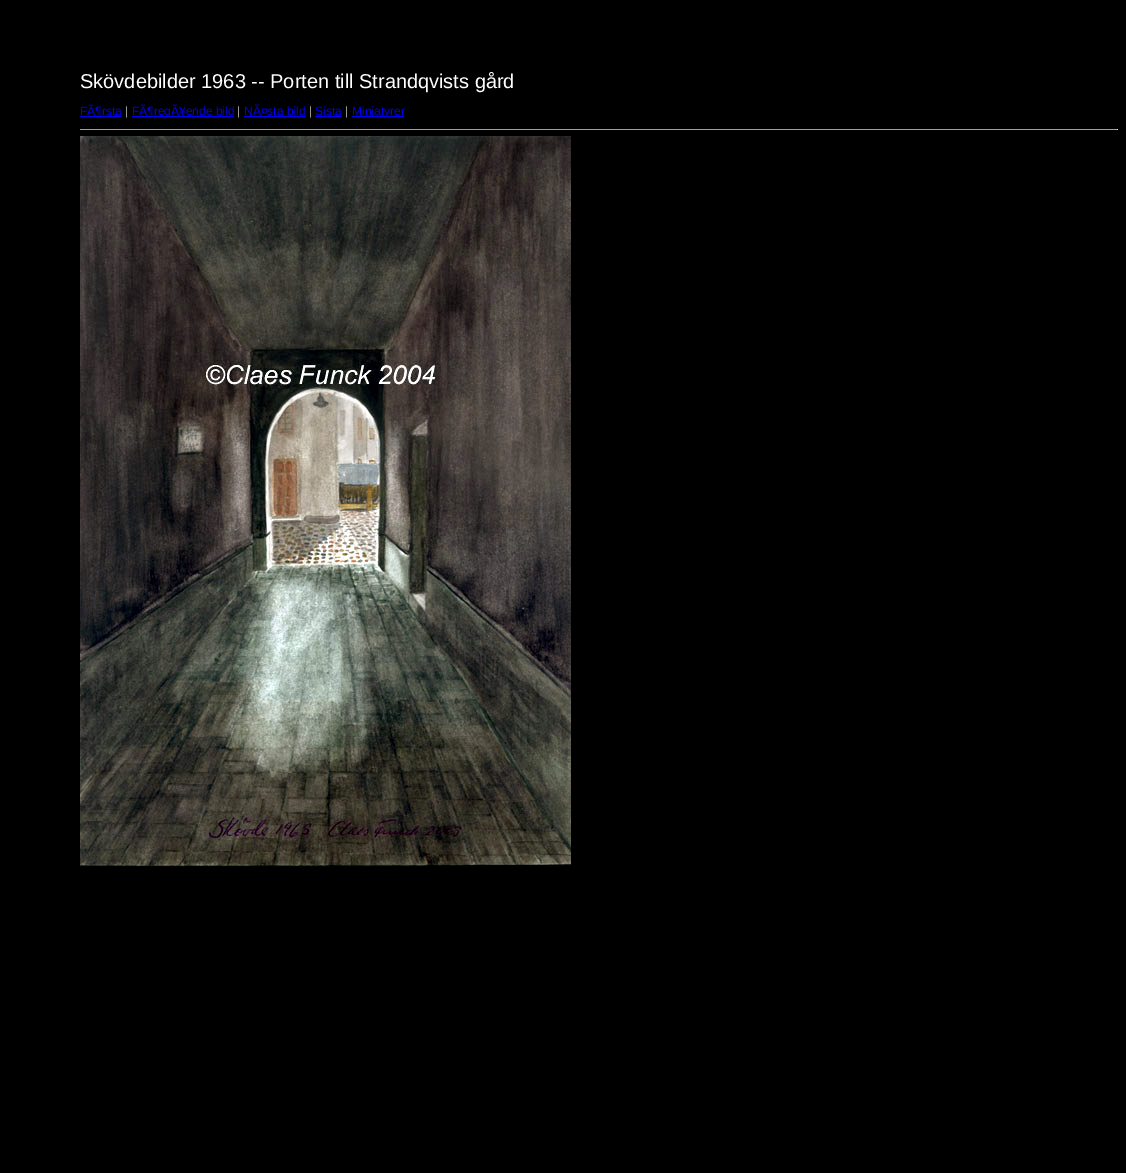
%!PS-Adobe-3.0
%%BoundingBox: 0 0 1126 1173
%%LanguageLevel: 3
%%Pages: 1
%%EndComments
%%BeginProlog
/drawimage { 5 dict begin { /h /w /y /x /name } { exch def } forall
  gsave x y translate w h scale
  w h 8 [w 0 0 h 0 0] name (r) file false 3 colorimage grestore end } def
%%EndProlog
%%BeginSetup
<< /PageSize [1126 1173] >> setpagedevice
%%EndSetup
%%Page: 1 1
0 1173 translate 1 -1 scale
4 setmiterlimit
0 setgray
0 0 1126 1173 rectfill
0 0 0.933 setrgbcolor
80 116 42 1 rectfill
132 116 102 1 rectfill
244 116 61 1 rectfill
315 116 27 1 rectfill
352 116 52 1 rectfill
0.624 setgray
80 129 1038 1 rectfill
0.933 setgray
1117 129 1 1 rectfill
(images/1.raw) 80 136 491 731 drawimage
/LiberationSans-Regular [20 0 0 -20 0 0] selectfont
1 setgray
80 88 moveto (Skövdebilder 1963 -- Porten till Strandqvists gård) show
/LiberationSans-Regular [12 0 0 -12 0 0] selectfont
0 0 0.933 setrgbcolor
80 115 moveto (FÃ¶rsta) show
0.6 setgray
125 115 moveto (|) show
0 0 0.933 setrgbcolor
132 115 moveto (FÃ¶regÃ¥ende bild) show
0.6 setgray
237 115 moveto (|) show
0 0 0.933 setrgbcolor
244 115 moveto (NÃ¤sta bild) show
0.6 setgray
309 115 moveto (|) show
0 0 0.933 setrgbcolor
315 115 moveto (Sista) show
0.6 setgray
345 115 moveto (|) show
0 0 0.933 setrgbcolor
352 115 moveto (Miniatyrer) show
showpage
%%EOF
